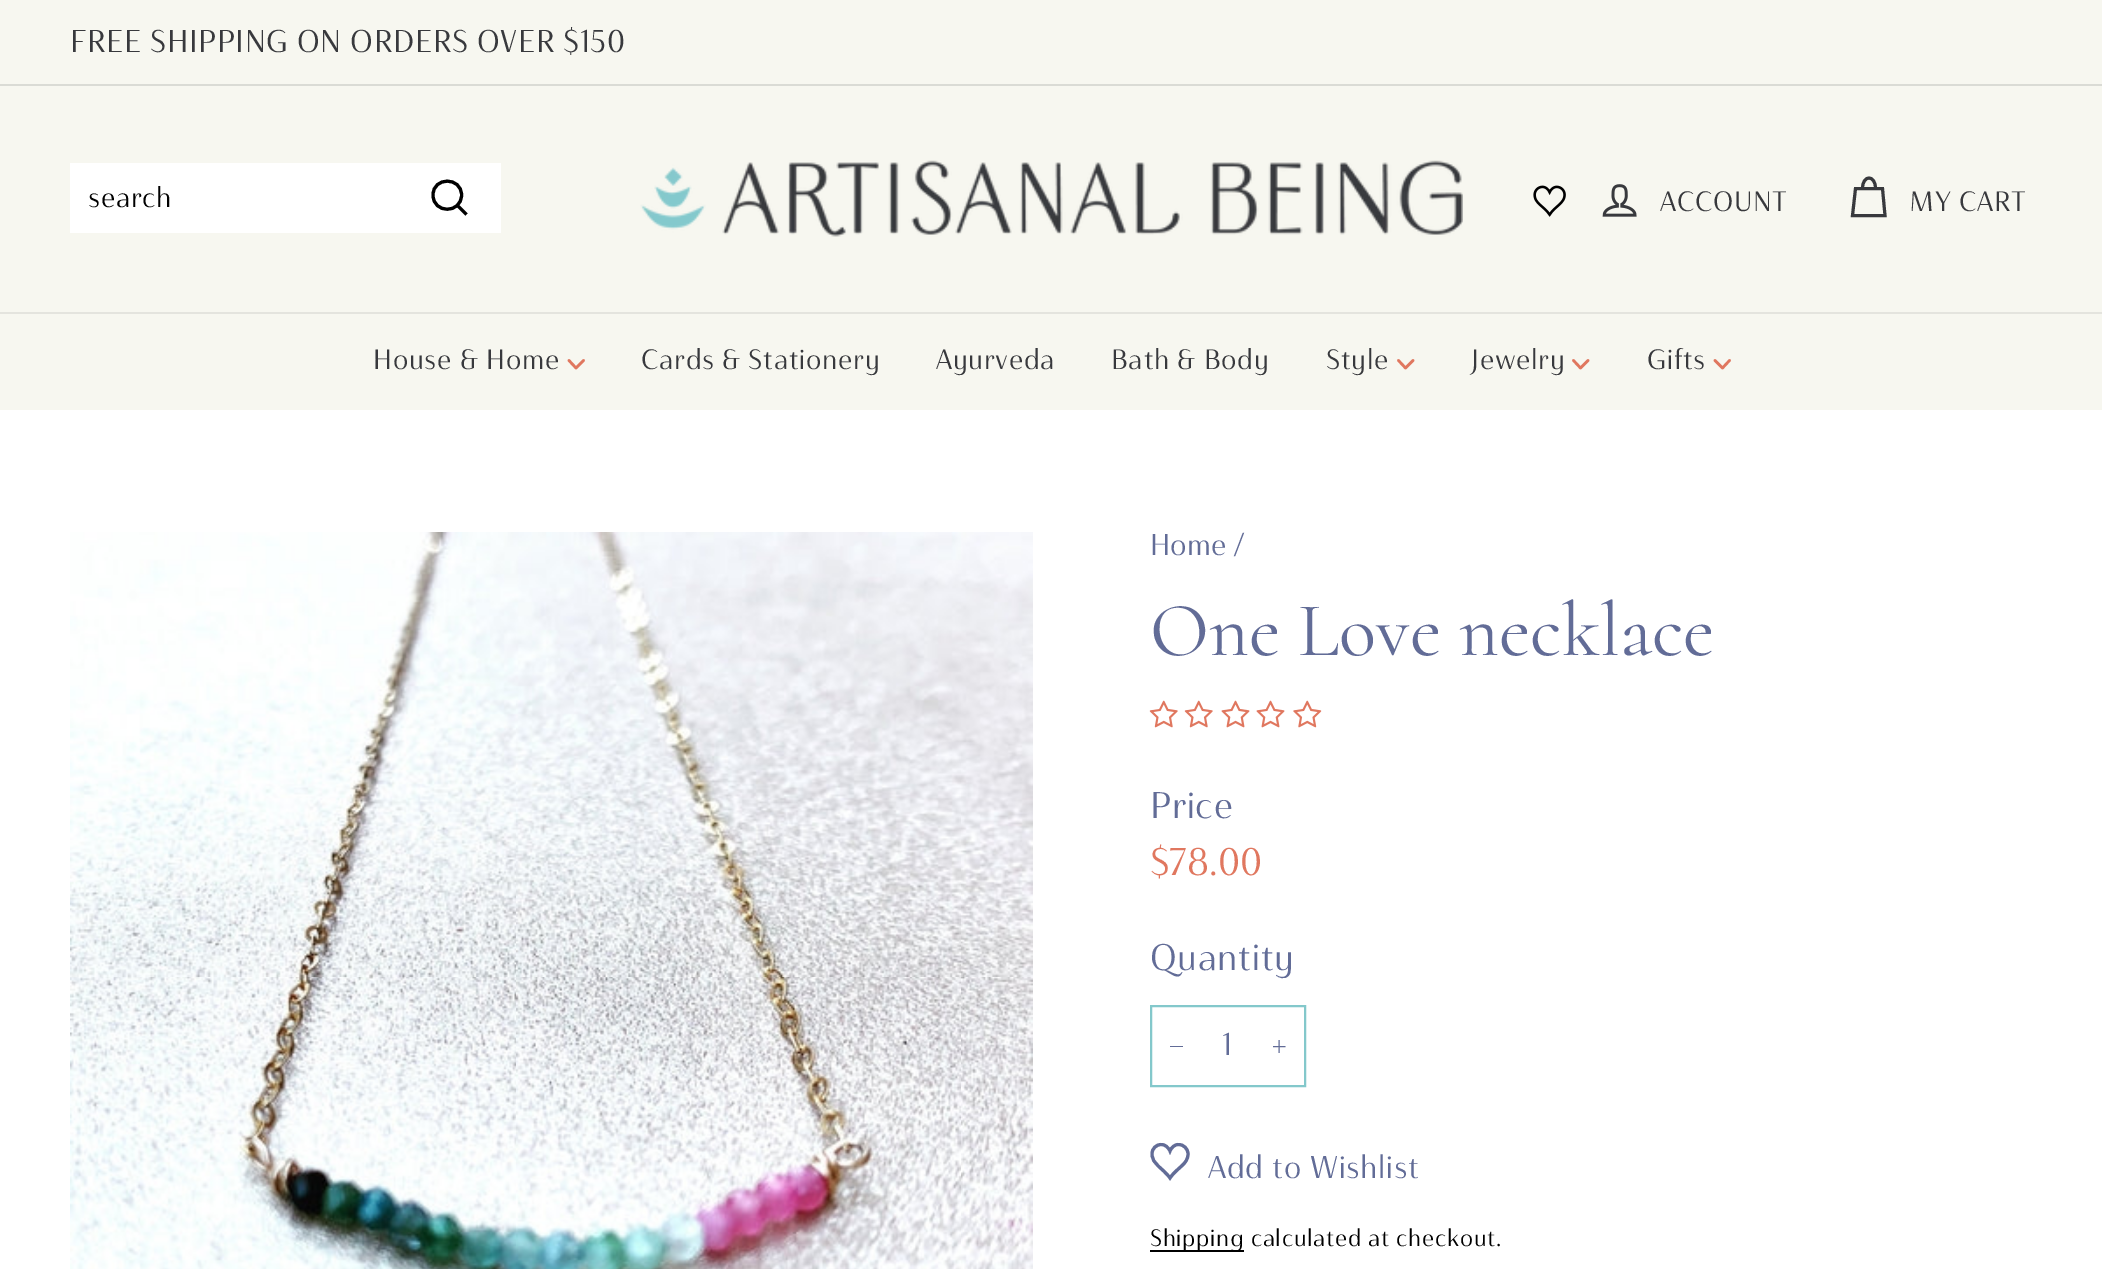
%!PS-Adobe-3.0
%%BoundingBox: 0 0 2102 1269
%%LanguageLevel: 3
%%Pages: 1
%%EndComments
%%BeginProlog
/drawimage { 5 dict begin { /h /w /y /x /name } { exch def } forall
  gsave x y translate w h scale
  w h 8 [w 0 0 h 0 0] name (r) file false 3 colorimage grestore end } def
%%EndProlog
%%BeginSetup
<< /PageSize [2102 1269] >> setpagedevice
%%EndSetup
%%Page: 1 1
0 1269 translate 1 -1 scale
4 setmiterlimit
1 setgray
0 0 2102 1269 rectfill
0.969 0.969 0.941 setrgbcolor
0 0 2102 84 rectfill
0.855 0.859 0.835 setrgbcolor
0 84 2102 2 rectfill
0.969 0.969 0.941 setrgbcolor
0 86 2102 226 rectfill
1 setgray
70 163 431 70 rectfill
0 setgray
3.1 setlinewidth
newpath 461.5 195 moveto 461.5 214 433 214 433 195 curveto 433 176.5 461.5 176.5 461.5 195 curveto closepath 466.5 214.5 moveto 457.5 205.5 lineto stroke
(images/1.raw) 640 160 823 77 drawimage
(images/2.raw) 1533 185 33 32 drawimage
(images/3.raw) 1602 184 35 33 drawimage
0.22 0.224 0.239 setrgbcolor
3 setlinewidth
newpath 1862.5 188.5 moveto 1862.5 174.5 1875.5 174.5 1875.5 188.5 curveto 1855.5 188.5 moveto 1882.5 188.5 lineto 1885 215.5 lineto 1852.5 215.5 lineto closepath stroke
0.969 0.969 0.941 setrgbcolor
newpath 0 312 moveto 0 410 lineto 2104 410 lineto 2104 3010 lineto 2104 312 lineto closepath fill
0.894 0.894 0.871 setrgbcolor
0 312 2102 2 rectfill
0.878 0.467 0.373 setrgbcolor
2.6 setlinewidth
1 setlinecap
1 setlinejoin
newpath 569 360.5 moveto 576 368 lineto 583.5 360.5 lineto stroke
newpath 1398.5 360.5 moveto 1405.5 368 lineto 1413 360.5 lineto stroke
newpath 1573.5 360.5 moveto 1580.5 368 lineto 1588 360.5 lineto stroke
newpath 1715 360.5 moveto 1722.5 368 lineto 1729.5 360.5 lineto stroke
(images/4.raw) 70 532 963 737 drawimage
(images/5.raw) 1149 700 29 28 drawimage
(images/5.raw) 1184 700 29 28 drawimage
(images/6.raw) 1221 700 29 28 drawimage
(images/6.raw) 1256 700 29 28 drawimage
(images/7.raw) 1293 700 29 28 drawimage
0.514 0.784 0.796 setrgbcolor
2 setlinewidth
0 setlinecap
0 setlinejoin
1151 1006 154 80 rectstroke
0.384 0.424 0.592 setrgbcolor
1170 1046 13 1 rectfill
1.1 setlinewidth
newpath 1279 1040 moveto 1279 1053 lineto 1285.5 1046.5 moveto 1273 1046.5 lineto stroke
3.1 setlinewidth
newpath 1178.5 1144.5 moveto 1174.5 1144.5 1171.5 1147.5 1170 1151 curveto 1168.5 1147.5 1165 1144.5 1161.5 1144.5 curveto 1156 1144.5 1152 1148.5 1152 1154 curveto 1152 1164.5 1162.5 1167.5 1170 1178 curveto 1177 1167.5 1188 1164.5 1188 1154 curveto 1188 1148.5 1183.5 1144.5 1178.5 1144.5 curveto closepath stroke
0 setgray
1150 1250 94 2 rectfill
/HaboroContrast-Regular [31.5 0 0 -31.5 0 0] selectfont
0.22 0.224 0.239 setrgbcolor
70 52 moveto 0.7 0 (FREE SHIPPING ON ORDERS OVER $150) ashow
/HaboroContrast-Regular [28 0 0 -28 0 0] selectfont
0 setgray
88 207 moveto 0.7 0 (search) ashow
0.22 0.224 0.239 setrgbcolor
1660 211 moveto 0.7 0 (ACCOUNT) ashow
1909 211 moveto 0.7 0 (MY CART) ashow
373 369 moveto 0.7 0 (House & Home) ashow
641 369 moveto 0.7 0 (Cards & Stationery) ashow
936 369 moveto 0.7 0 (Ayurveda) ashow
1111 369 moveto 0.7 0 (Bath & Body) ashow
1326 369 moveto 0.7 0 (Style) ashow
1471 369 moveto 0.7 0 (Jewelry) ashow
1647 369 moveto 0.7 0 (Gifts) ashow
/HaboroContrast-Regular [30 0 0 -30 0 0] selectfont
0.384 0.424 0.592 setrgbcolor
1150 555 moveto (Home /) show
/Cormorant-Regular [77 0 0 -77 0 0] selectfont
1150 655 moveto (One Love necklace) show
/HaboroContrast-Regular [37 0 0 -37 0 0] selectfont
1150 818 moveto 0.7 0 (Price) ashow
/HaboroContrast-Regular [38.5 0 0 -38.5 0 0] selectfont
0.878 0.467 0.373 setrgbcolor
1150 875 moveto ($78.00) show
/HaboroContrast-Regular [37 0 0 -37 0 0] selectfont
0.384 0.424 0.592 setrgbcolor
1150 970 moveto 0.7 0 (Quantity) ashow
/HaboroContrast-Regular [31.5 0 0 -31.5 0 0] selectfont
1222 1055 moveto 1 0 (1) ashow
1208 1178 moveto 0.7 0 (Add to Wishlist) ashow
/HaboroContrast-Regular [23.75 0 0 -23.75 0 0] selectfont
0 setgray
1150 1246 moveto 0.7 0 (Shipping calculated at checkout.) ashow
showpage
%%EOF
